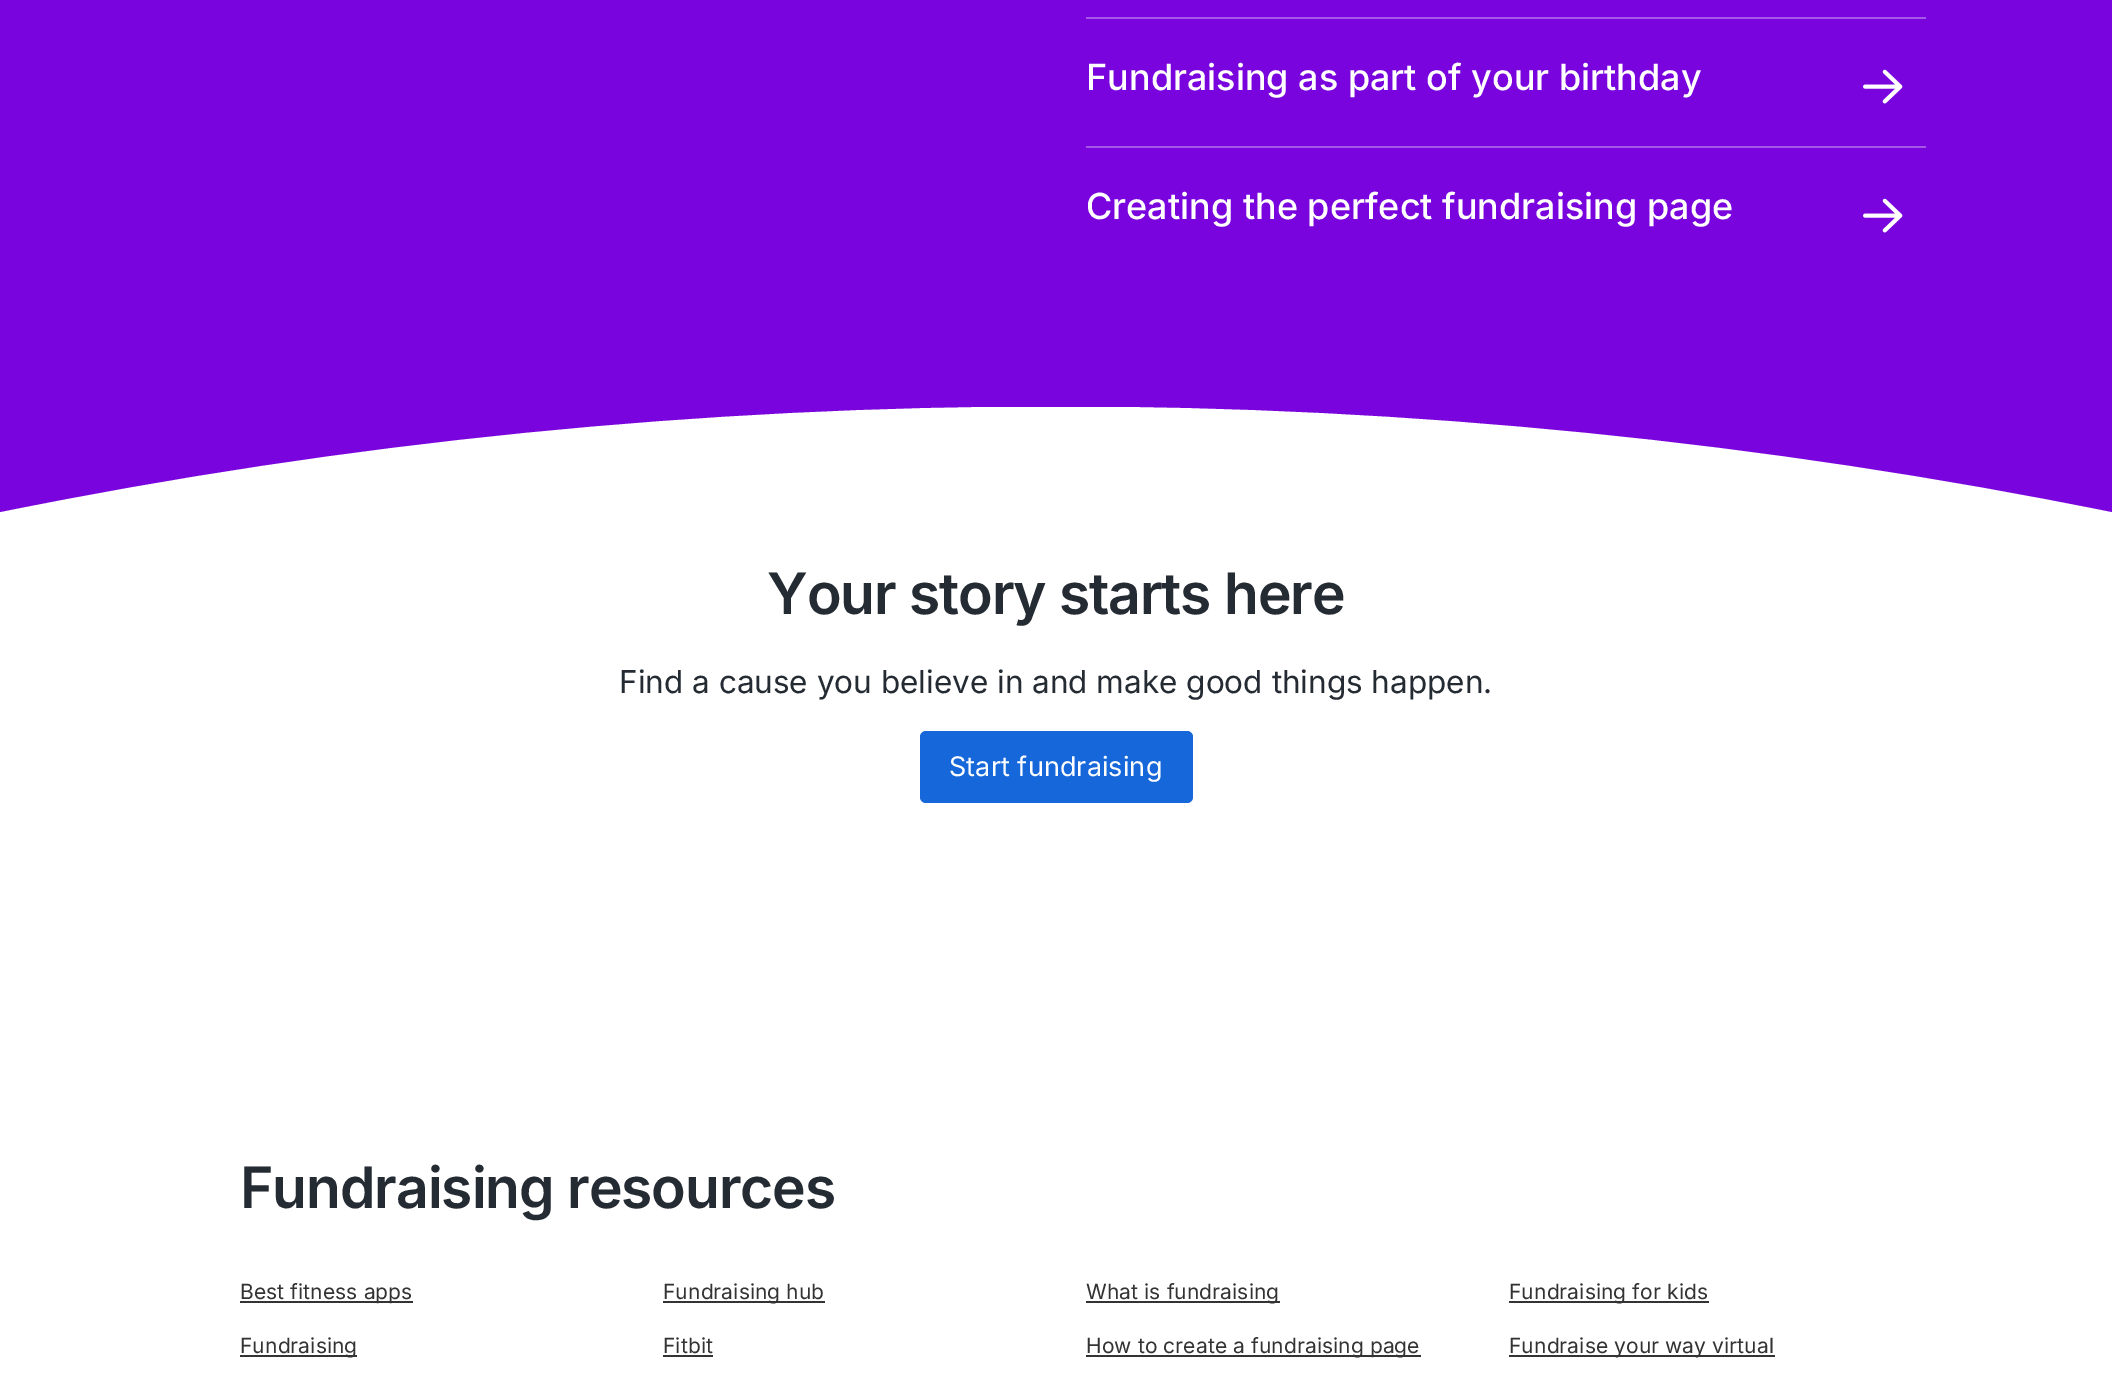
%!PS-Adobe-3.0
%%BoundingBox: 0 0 2112 1379
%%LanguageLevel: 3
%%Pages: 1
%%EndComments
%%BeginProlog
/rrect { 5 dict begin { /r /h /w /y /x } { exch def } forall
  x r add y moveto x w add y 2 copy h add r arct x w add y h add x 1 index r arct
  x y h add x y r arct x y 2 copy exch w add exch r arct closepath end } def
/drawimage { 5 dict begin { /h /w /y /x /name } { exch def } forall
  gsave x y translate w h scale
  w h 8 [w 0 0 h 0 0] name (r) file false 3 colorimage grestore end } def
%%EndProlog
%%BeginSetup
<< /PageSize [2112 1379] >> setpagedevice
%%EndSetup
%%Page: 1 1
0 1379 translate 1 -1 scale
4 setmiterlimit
1 setgray
0 0 2112 1379 rectfill
0.478 0.016 0.867 setrgbcolor
0 0 2112 407 rectfill
0.651 0.341 0.91 setrgbcolor
1086 17 840 2 rectfill
(images/1.raw) 1863 69 40 35 drawimage
1086 146 840 2 rectfill
(images/1.raw) 1863 198 40 35 drawimage
gsave
0 407 2112 105 rectclip
0.478 0.016 0.867 setrgbcolor
newpath 2112 512 moveto 2112 406 lineto 0 406 lineto 0 512 lineto 694 371 1417 371 2112 512 curveto closepath eofill
grestore
0.086 0.404 0.851 setrgbcolor
920 731 273 72 6 rrect fill
0.2 setgray
240 1301 173 2 rectfill
240 1355 117 2 rectfill
663 1301 162 2 rectfill
663 1355 50 2 rectfill
1086 1301 194 2 rectfill
1086 1355 335 2 rectfill
1509 1301 200 2 rectfill
1509 1355 266 2 rectfill
/Inter-Medium [36 0 0 -36 0 0] selectfont
1 setgray
1086 90 moveto (Fundraising as part of your birthday) show
1086 219 moveto (Creating the perfect fundraising page) show
/Inter-SemiBold [57 0 0 -57 0 0] selectfont
0.145 0.169 0.2 setrgbcolor
767 614 moveto -1.1 0 (Your story starts here) ashow
/Inter-Regular [31.5 0 0 -31.5 0 0] selectfont
619 693 moveto (Find a cause you believe in and make good things happen.) show
/Inter-Regular [27 0 0 -27 0 0] selectfont
1 setgray
949 776 moveto 0.1 0 (Start fundraising) ashow
/Inter-SemiBold [57 0 0 -57 0 0] selectfont
0.145 0.169 0.2 setrgbcolor
240 1208 moveto -1.1 0 (Fundraising resources) ashow
/Inter-Regular [21 0 0 -21 0 0] selectfont
0.2 setgray
240 1299 moveto 0.1 0 (Best fitness apps) ashow
240 1353 moveto 0.1 0 (Fundraising) ashow
663 1299 moveto 0.1 0 (Fundraising hub) ashow
663 1353 moveto 0.1 0 (Fitbit) ashow
1086 1299 moveto 0.1 0 (What is fundraising) ashow
1086 1353 moveto 0.1 0 (How to create a fundraising page) ashow
1509 1299 moveto 0.1 0 (Fundraising for kids) ashow
1509 1353 moveto 0.1 0 (Fundraise your way virtual) ashow
showpage
%%EOF
